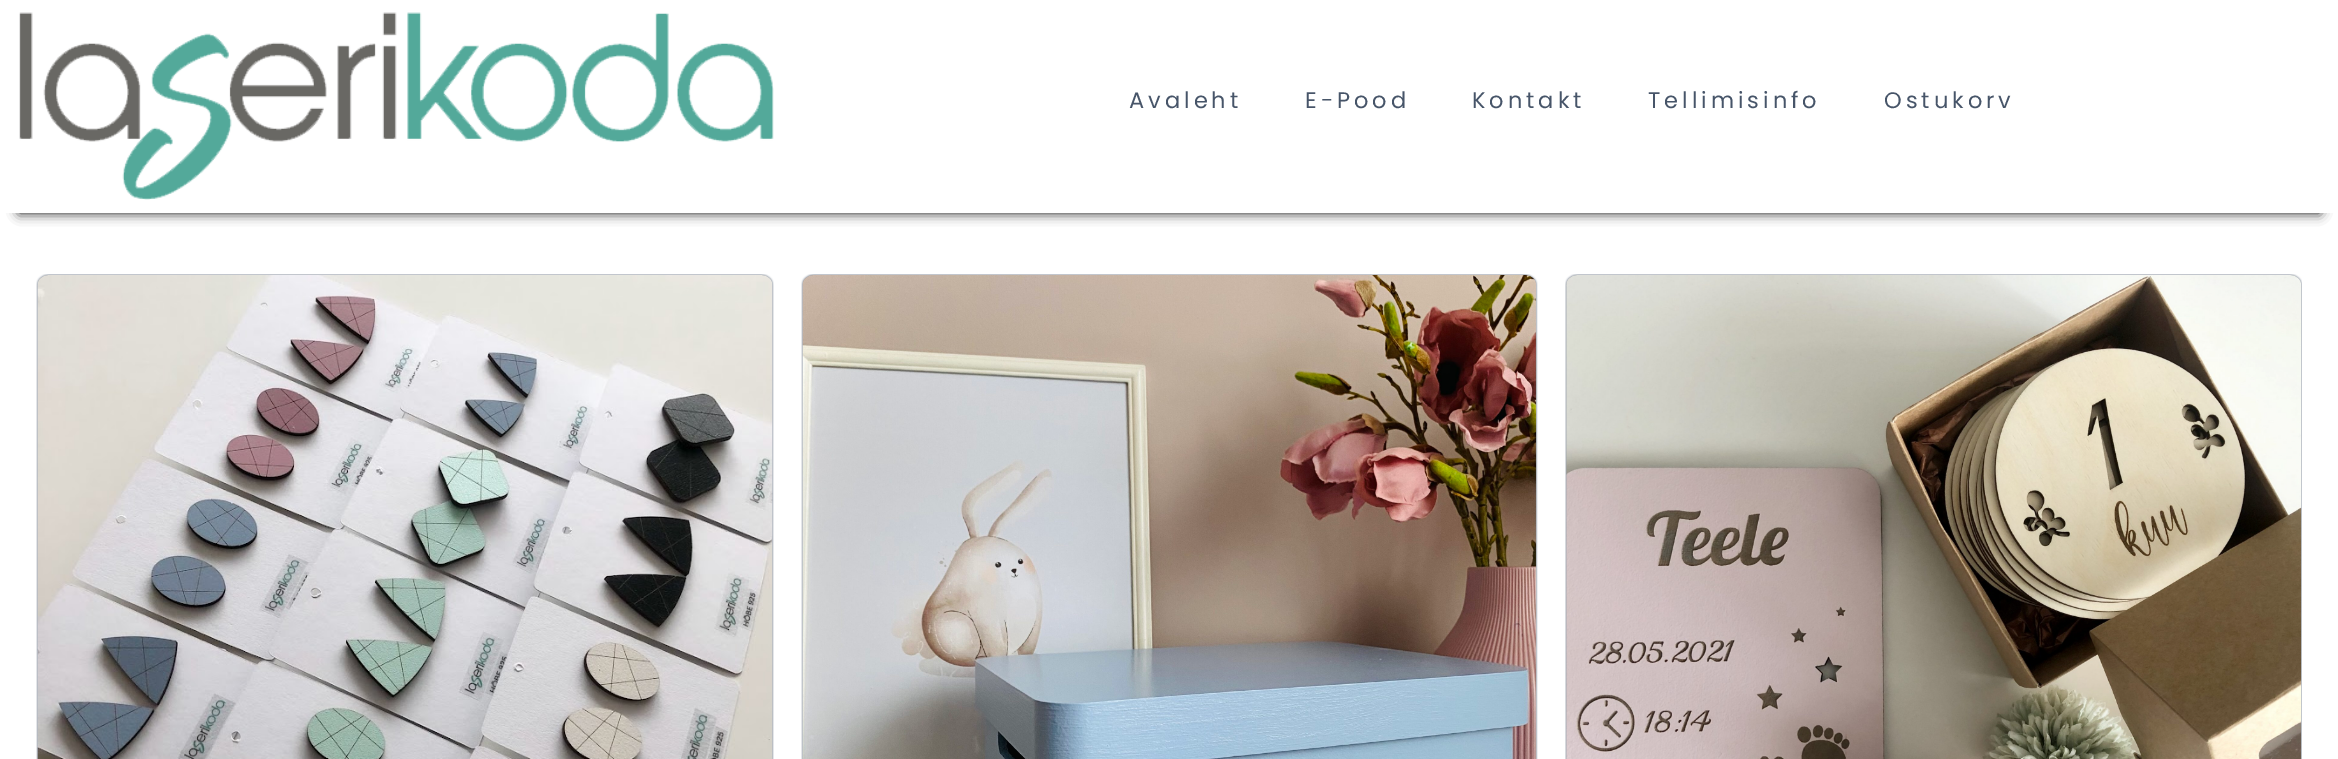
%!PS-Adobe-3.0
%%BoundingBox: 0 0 2338 759
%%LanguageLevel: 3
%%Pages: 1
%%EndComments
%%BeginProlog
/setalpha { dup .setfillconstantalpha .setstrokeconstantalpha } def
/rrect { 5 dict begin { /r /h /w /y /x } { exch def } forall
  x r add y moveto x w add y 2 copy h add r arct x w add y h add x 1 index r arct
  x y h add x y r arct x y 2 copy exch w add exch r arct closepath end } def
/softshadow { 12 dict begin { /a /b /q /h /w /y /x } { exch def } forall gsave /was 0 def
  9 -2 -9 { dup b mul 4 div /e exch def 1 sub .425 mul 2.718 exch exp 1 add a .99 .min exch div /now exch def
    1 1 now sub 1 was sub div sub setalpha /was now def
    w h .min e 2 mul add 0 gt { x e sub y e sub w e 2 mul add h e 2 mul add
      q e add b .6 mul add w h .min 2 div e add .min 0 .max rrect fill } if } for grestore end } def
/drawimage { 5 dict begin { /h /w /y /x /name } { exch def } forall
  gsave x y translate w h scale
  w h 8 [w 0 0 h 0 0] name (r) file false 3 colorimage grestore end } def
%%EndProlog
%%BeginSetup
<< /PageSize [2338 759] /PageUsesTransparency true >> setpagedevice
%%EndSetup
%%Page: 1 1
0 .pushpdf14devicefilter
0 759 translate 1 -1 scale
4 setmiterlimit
1 setgray
0 0 2338 759 rectfill
gsave
newpath 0 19 moveto 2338 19 lineto 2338 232 lineto 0 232 lineto closepath 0 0 moveto 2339 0 lineto 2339 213 lineto 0 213 lineto closepath eoclip newpath
0.067 setgray
19 38 2301 175 0 6 1 softshadow
grestore
(images/1.raw) 19 12 755 188 drawimage
(images/2.raw) 36 274 738 485 drawimage
(images/3.raw) 801 274 737 485 drawimage
(images/4.raw) 1565 274 737 485 drawimage
/Poppins-Regular [22.5 0 0 -22.5 0 0] selectfont
0.278 0.333 0.412 setrgbcolor
1129 108 moveto 4 0 (Avaleht) ashow
1305 108 moveto 4 0 (E-Pood) ashow
1472 108 moveto 4 0 (Kontakt) ashow
1648 108 moveto 4 0 (Tellimisinfo) ashow
1884 108 moveto 4 0 (Ostukorv) ashow
.poppdf14devicefilter showpage
%%EOF
